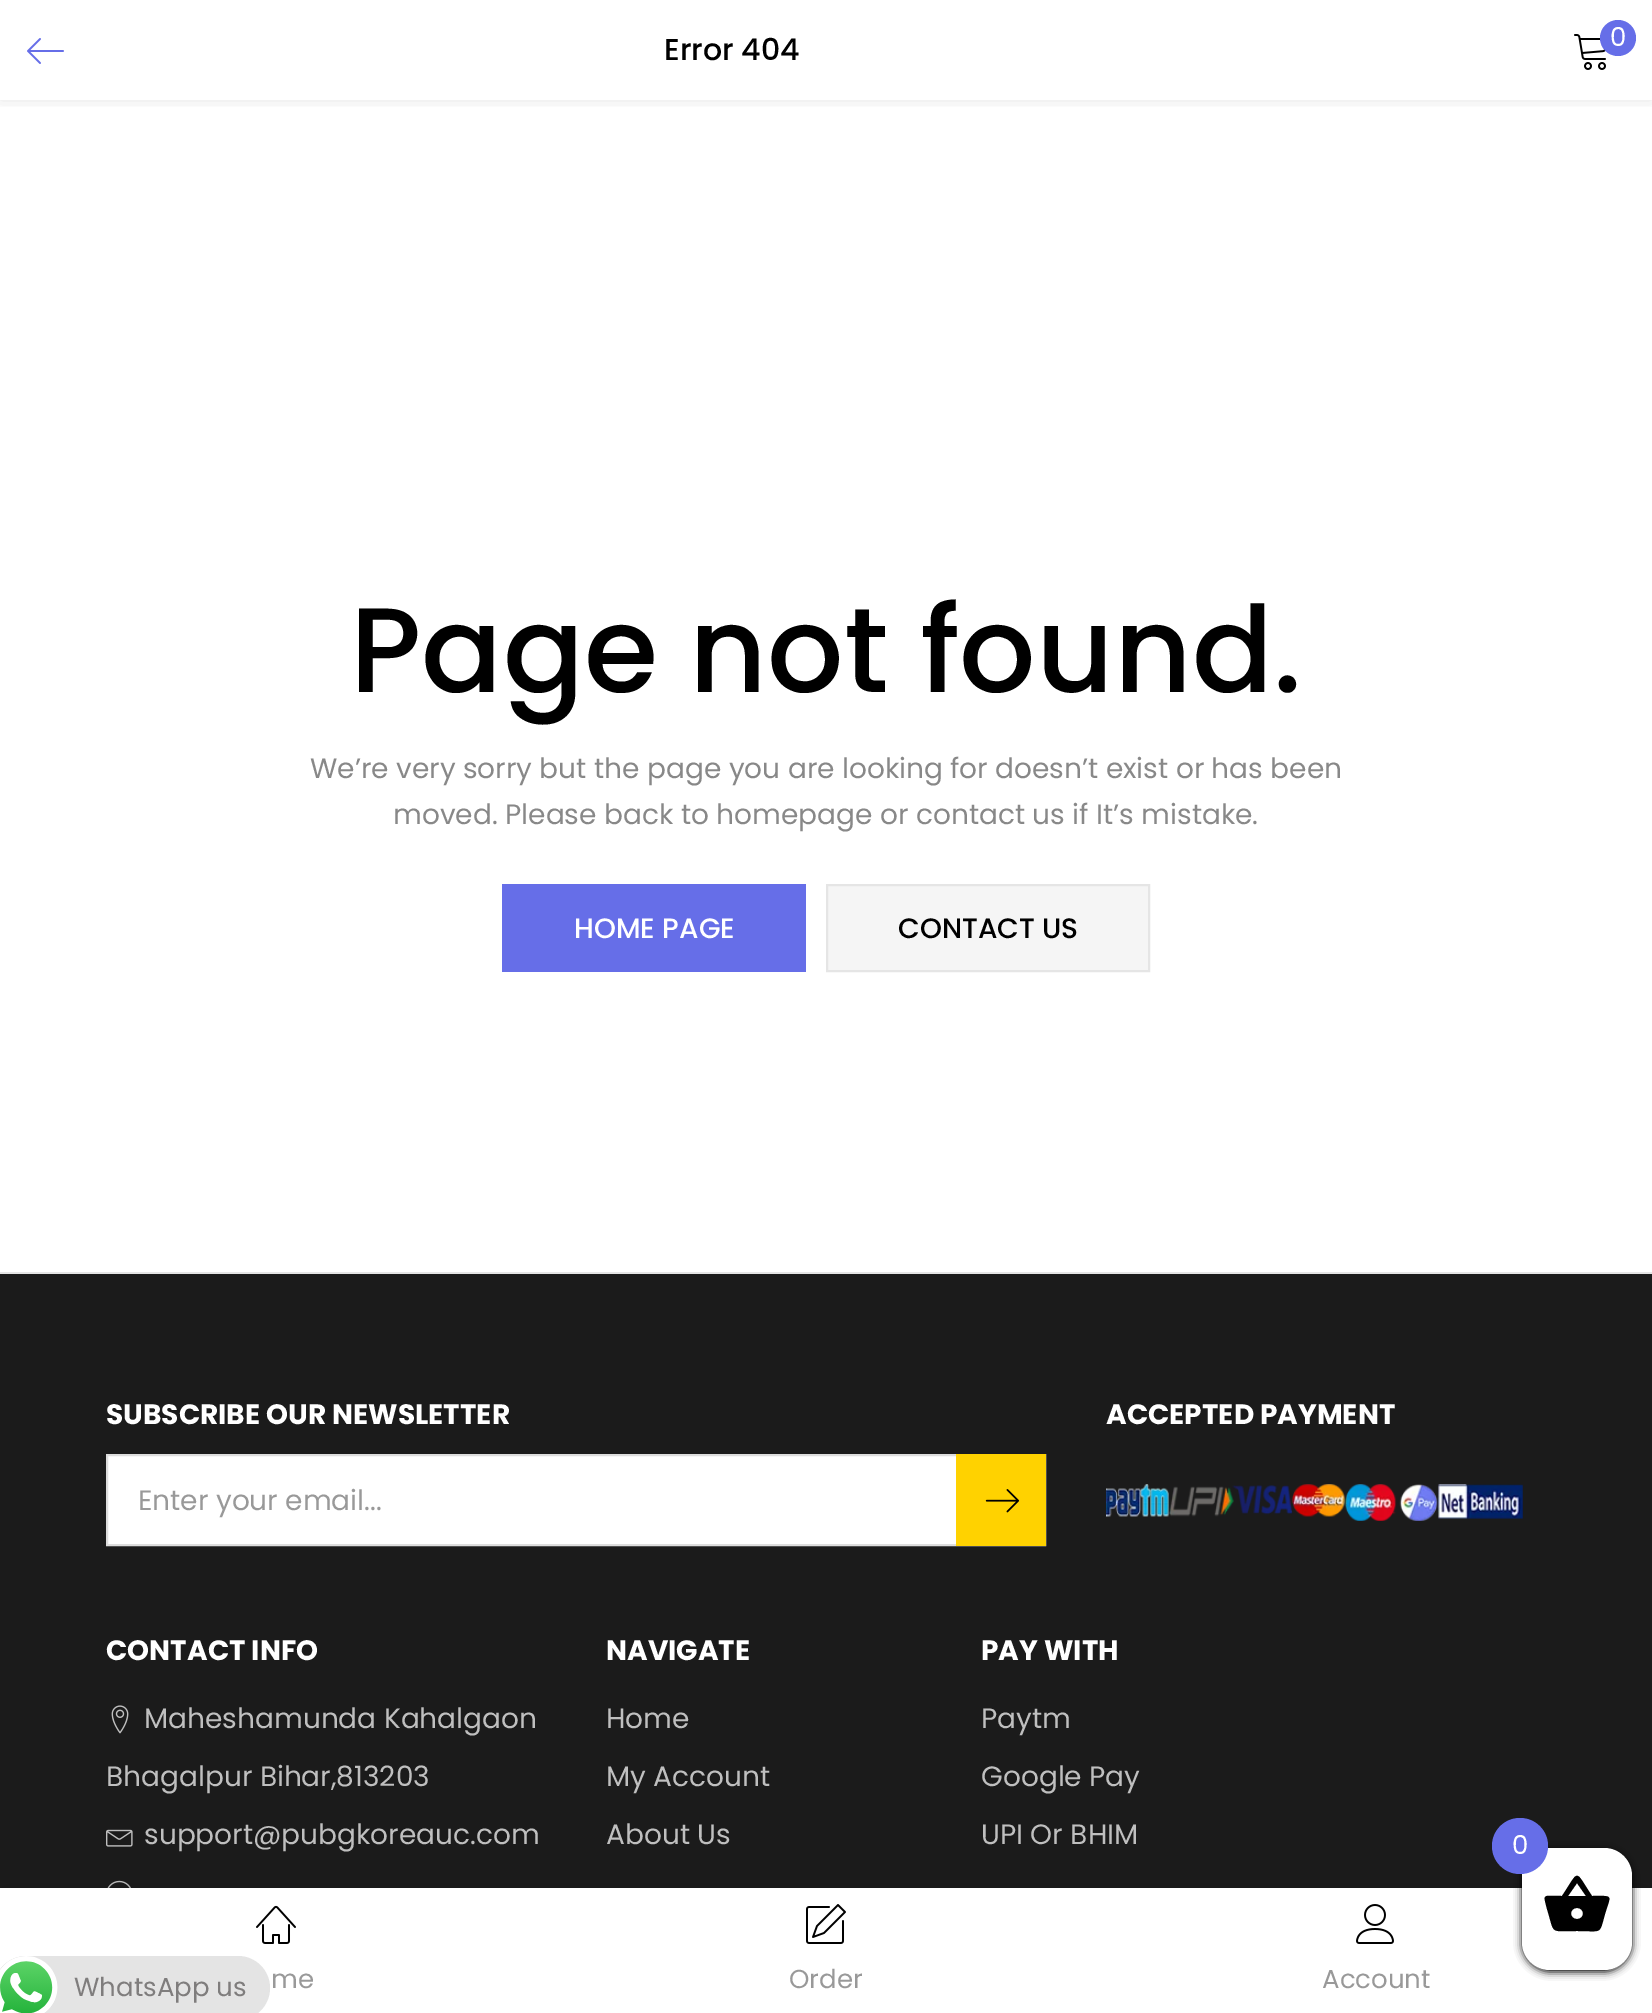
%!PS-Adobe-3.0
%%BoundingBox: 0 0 1652 2013
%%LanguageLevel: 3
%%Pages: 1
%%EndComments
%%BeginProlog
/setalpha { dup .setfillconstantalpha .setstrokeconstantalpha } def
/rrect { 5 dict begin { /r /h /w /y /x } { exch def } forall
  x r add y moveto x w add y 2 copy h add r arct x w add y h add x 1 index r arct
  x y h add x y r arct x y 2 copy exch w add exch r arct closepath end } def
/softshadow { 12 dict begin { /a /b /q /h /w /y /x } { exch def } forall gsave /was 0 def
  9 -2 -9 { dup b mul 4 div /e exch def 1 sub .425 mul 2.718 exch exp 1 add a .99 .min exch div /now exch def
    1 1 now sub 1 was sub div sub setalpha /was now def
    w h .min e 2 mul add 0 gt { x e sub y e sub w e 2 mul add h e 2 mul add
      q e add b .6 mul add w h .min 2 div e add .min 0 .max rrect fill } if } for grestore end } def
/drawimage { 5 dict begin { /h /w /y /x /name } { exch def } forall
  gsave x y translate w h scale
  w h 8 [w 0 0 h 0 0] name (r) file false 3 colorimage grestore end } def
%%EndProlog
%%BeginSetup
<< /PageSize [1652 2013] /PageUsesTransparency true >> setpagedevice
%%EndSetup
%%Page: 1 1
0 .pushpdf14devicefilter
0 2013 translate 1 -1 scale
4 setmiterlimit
1 setgray
0 0 1652 2013 rectfill
gsave
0 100 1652 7 rectclip
0 setgray
0 0 1652 100 0 8 0.1 softshadow
grestore
(images/1.raw) 27 38 37 26 drawimage
(images/2.raw) 1574 34 32 36 drawimage
0.4 0.431 0.91 setrgbcolor
newpath 1618 38 18 0 360 arc closepath fill
502 884 304 88 rectfill
0.961 setgray
newpath 827 885 moveto 1149 885 lineto 1149 971 lineto 827 971 lineto closepath gsave fill grestore
0.898 setgray
2 setlinewidth
stroke
0.106 setgray
0 1274 1652 614 rectfill
0.898 setgray
0 1272 1652 2 rectfill
1 setgray
108 1456 848 88 rectfill
0.867 setgray
107 1455 938 90 rectstroke
1 0.824 0 setrgbcolor
956 1454 90 92 rectfill
(images/3.raw) 985 1489 35 24 drawimage
(images/4.raw) 1106 1484 417 37 drawimage
(images/5.raw) 111 1705 18 29 drawimage
(images/6.raw) 106 1829 27 18 drawimage
(images/7.raw) 107 1880 24 8 drawimage
0 setgray
0 1888 1652 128 0 20 0.1 softshadow
1 setgray
0 1888 1652 125 rectfill
(images/8.raw) 256 1905 40 39 drawimage
(images/9.raw) 806 1904 40 40 drawimage
(images/10.raw) 1356 1904 38 40 drawimage
0 setgray
1522 1850 110 122 28 4 1 softshadow
1 setgray
1522 1848 110 122 28 rrect fill
0.4 0.431 0.91 setrgbcolor
newpath 1520 1846 28 0 360 arc closepath fill
0 setgray
newpath 1577 1919 moveto 1585 1919 1585 1908 1577 1908 curveto 1569 1908 1569 1919 1577 1919 curveto closepath 1568 1896 moveto 1586 1896 lineto 1577 1883 lineto closepath 1592 1896 moveto 1614 1896 1611 1894 1605 1914 curveto 1599 1935 1603 1931 1577 1931 curveto 1549 1931 1555 1935 1547 1909 curveto 1543 1893 1542 1896 1562 1896 curveto 1580 1869 1574 1869 1592 1896 curveto closepath fill
0.894 setgray
-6 1956 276 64 32 rrect fill
(images/11.raw) 0 1956 58 57 drawimage
/Poppins-Medium [30 0 0 -30 0 0] selectfont
0 setgray
664 60 moveto (Error 404) show
/Poppins-Regular [26 0 0 -26 0 0] selectfont
1 setgray
1610 46 moveto (0) show
/Poppins-Medium [120 0 0 -120 0 0] selectfont
0 setgray
350 692 moveto (Page not found.) show
/Poppins-Regular [28 0 0 -28 0 0] selectfont
0.533 setgray
310 778 moveto (We’re very sorry but the page you are looking for doesn’t exist or has been) show
393 824 moveto (moved. Please back to homepage or contact us if It’s mistake.) show
/Poppins-Medium [28 0 0 -28 0 0] selectfont
1 setgray
574 938 moveto (HOME PAGE) show
0 setgray
898 938 moveto (CONTACT US) show
/Poppins-Bold [28 0 0 -28 0 0] selectfont
1 setgray
106 1424 moveto (SUBSCRIBE OUR NEWSLETTER) show
/Poppins-Regular [28 0 0 -28 0 0] selectfont
0.6 setgray
138 1510 moveto (Enter your email...) show
/Poppins-Bold [28 0 0 -28 0 0] selectfont
1 setgray
1106 1424 moveto (ACCEPTED PAYMENT) show
106 1660 moveto (CONTACT INFO) show
/Poppins-Regular [28 0 0 -28 0 0] selectfont
0.749 setgray
144 1728 moveto (Maheshamunda Kahalgaon) show
106 1786 moveto (Bhagalpur Bihar,813203) show
144 1844 moveto (support@pubgkoreauc.com) show
/Poppins-Bold [28 0 0 -28 0 0] selectfont
1 setgray
606 1660 moveto (NAVIGATE) show
/Poppins-Regular [28 0 0 -28 0 0] selectfont
0.749 setgray
606 1728 moveto (Home) show
606 1786 moveto (My Account) show
606 1844 moveto (About Us) show
/Poppins-Bold [28 0 0 -28 0 0] selectfont
1 setgray
981 1660 moveto (PAY WITH) show
/Poppins-Regular [28 0 0 -28 0 0] selectfont
0.749 setgray
981 1728 moveto (Paytm) show
981 1786 moveto (Google Pay) show
981 1844 moveto (UPI Or BHIM) show
/Poppins-Regular [26 0 0 -26 0 0] selectfont
0.6 setgray
271 1988 moveto (me) show
789 1988 moveto (Order) show
1322 1988 moveto (Account) show
1 setgray
1512 1854 moveto (0) show
0.498 0.49 0.49 setrgbcolor
74 1996 moveto (WhatsApp us) show
.poppdf14devicefilter showpage
%%EOF
